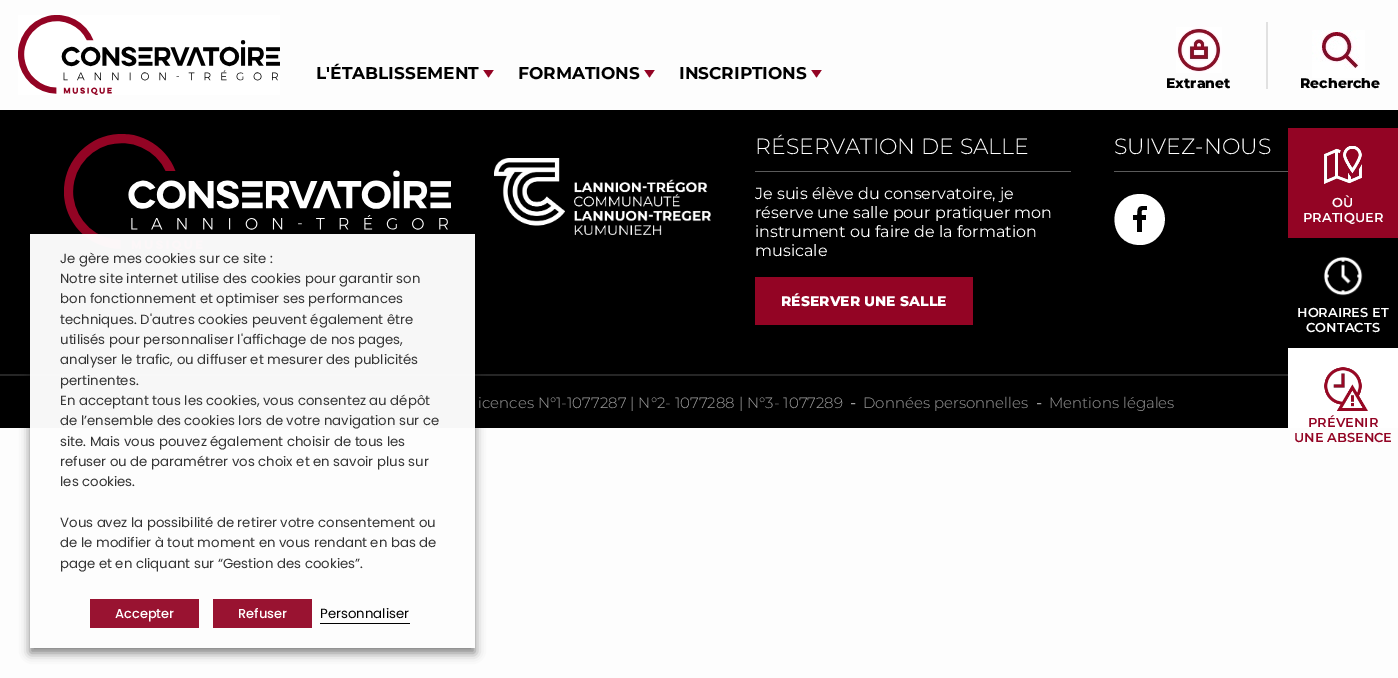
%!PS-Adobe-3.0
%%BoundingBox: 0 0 1398 678
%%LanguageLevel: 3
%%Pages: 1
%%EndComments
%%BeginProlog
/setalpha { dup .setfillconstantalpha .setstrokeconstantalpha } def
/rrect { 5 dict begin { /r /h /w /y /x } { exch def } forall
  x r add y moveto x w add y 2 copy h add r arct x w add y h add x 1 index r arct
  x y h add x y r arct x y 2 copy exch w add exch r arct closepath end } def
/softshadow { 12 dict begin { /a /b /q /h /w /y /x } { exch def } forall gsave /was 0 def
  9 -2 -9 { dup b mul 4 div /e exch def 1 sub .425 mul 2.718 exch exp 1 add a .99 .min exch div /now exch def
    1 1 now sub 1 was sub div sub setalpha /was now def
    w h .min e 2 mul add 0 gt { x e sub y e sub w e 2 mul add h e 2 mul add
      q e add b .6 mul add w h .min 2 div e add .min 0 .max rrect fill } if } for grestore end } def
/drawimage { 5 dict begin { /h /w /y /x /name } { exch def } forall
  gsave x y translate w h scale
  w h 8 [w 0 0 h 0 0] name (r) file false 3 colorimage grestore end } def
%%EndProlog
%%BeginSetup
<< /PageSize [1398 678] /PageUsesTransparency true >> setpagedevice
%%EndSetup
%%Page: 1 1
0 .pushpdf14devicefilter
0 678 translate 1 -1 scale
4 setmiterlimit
0.992 setgray
0 0 1398 678 rectfill
(images/1.raw) 18 15 262 80 drawimage
gsave
483 70 11 8 rectclip
0.576 0.016 0.141 setrgbcolor
newpath 488.5 77.5 moveto 483 69.5 lineto 494 69.5 lineto closepath fill
grestore
gsave
644 70 11 8 rectclip
0.576 0.016 0.141 setrgbcolor
newpath 649.5 77.5 moveto 644 69.5 lineto 655 69.5 lineto closepath fill
grestore
gsave
811 70 11 8 rectclip
0.576 0.016 0.141 setrgbcolor
newpath 816.5 77.5 moveto 811 69.5 lineto 822 69.5 lineto closepath fill
grestore
(images/2.raw) 1176 27 46 46 drawimage
0.882 setgray
1266 22 2 67 rectfill
0 setgray
0 110 1398 318 rectfill
0.576 0.016 0.141 setrgbcolor
1288 128 110 110 rectfill
(images/4.raw) 1324 145 38 39 drawimage
(images/5.raw) 1323 256 40 40 drawimage
1 setgray
1288 348 110 80 rectfill
(images/6.raw) 1324 367 44 44 drawimage
(images/7.raw) 64 134 387 117 drawimage
0.149 setgray
0 374 1288 2 rectfill
gsave
newpath 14 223 moveto 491 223 lineto 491 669 lineto 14 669 lineto closepath 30 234 moveto 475 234 lineto 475 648 lineto 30 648 lineto closepath eoclip newpath
0 setgray
30 239 445 414 0 5 0.5 softshadow
grestore
0.97 setalpha
1 setgray
30 234 445 194 rectfill
1 setalpha
0.6 0.075 0.192 setrgbcolor
90 599 109 29 rectfill
213 599 99 29 rectfill
0 setgray
320 623 90 1 rectfill
0.357 setgray
755 171 316 1 rectfill
0.576 0.016 0.141 setrgbcolor
755 277 218 48 rectfill
0.357 setgray
1114 171 174 1 rectfill
1 setgray
newpath 1140 245 moveto 1106 245 1106 194 1140 194 curveto 1144 194 1149 195 1153 198 curveto 1175 212 1164 245 1140 245 curveto closepath 1133 215 moveto 1133 220 lineto 1137 220 lineto 1137 232 lineto 1142 232 lineto 1142 220 lineto 1146 220 lineto 1146 215 lineto 1142 215 lineto 1142 210 1141 210 1147 210 curveto 1147 206 lineto 1138 205 1137 207 1137 215 curveto closepath fill
(images/8.raw) 494 158 217 77 drawimage
/Montserrat-Bold [17 0 0 -17 0 0] selectfont
0 setgray
316 79 moveto (L'ÉTABLISSEMENT) show
518 79 moveto (FORMATIONS) show
679 79 moveto (INSCRIPTIONS) show
/Montserrat-ExtraBold [14 0 0 -14 0 0] selectfont
1166 88 moveto (Extranet) show
1300 88 moveto (Recherche) show
(images/3.raw) 1312 30 53 48 drawimage
/Montserrat-SemiBold [13 0 0 -13 0 0] selectfont
1 setgray
1332 207 moveto (OÙ) show
1303 222 moveto (PRATIQUER) show
1297 317 moveto (HORAIRES ET) show
1306 332 moveto (CONTACTS) show
0.576 0.016 0.141 setrgbcolor
1308 427 moveto (PRÉVENIR) show
1294 442 moveto (UNE ABSENCE) show
/Poppins-Regular [13.3 0 0 -13.3 0 0] selectfont
0.2 setgray
60 263 moveto (Je gère mes cookies sur ce site :) show
60 283 moveto (Notre site internet utilise des cookies pour garantir son) show
60 303 moveto (bon fonctionnement et optimiser ses performances) show
60 324 moveto (techniques. D'autres cookies peuvent également être) show
60 344 moveto (utilisés pour personnaliser l'affichage de nos pages,) show
60 364 moveto (analyser le trafic, ou diffuser et mesurer des publicités) show
60 385 moveto (pertinentes.) show
60 405 moveto (En acceptant tous les cookies, vous consentez au dépôt) show
60 425 moveto (de l’ensemble des cookies lors de votre navigation sur ce) show
60 446 moveto (site. Mais vous pouvez également choisir de tous les) show
60 466 moveto (refuser ou de paramétrer vos choix et en savoir plus sur) show
60 486 moveto (les cookies.) show
60 527 moveto (Vous avez la possibilité de retirer votre consentement ou) show
60 547 moveto (de le modifier à tout moment en vous rendant en bas de) show
60 568 moveto (page et en cliquant sur “Gestion des cookies”.) show
/Poppins-Medium [13 0 0 -13 0 0] selectfont
1 setgray
115 618 moveto (Accepter) show
238 618 moveto (Refuser) show
/Poppins-Regular [13.3 0 0 -13.3 0 0] selectfont
0 setgray
320 618 moveto (Personnaliser) show
/Montserrat-Light [22 0 0 -22 0 0] selectfont
1 setgray
755 154 moveto (RÉSERVATION DE SALLE) show
/Montserrat-Regular [16 0 0 -16 0 0] selectfont
755 199 moveto (Je suis élève du conservatoire, je) show
755 218 moveto (réserve une salle pour pratiquer mon) show
755 237 moveto (instrument ou faire de la formation) show
755 256 moveto (musicale) show
/Montserrat-ExtraBold [14 0 0 -14 0 0] selectfont
781 306 moveto (RÉSERVER UNE SALLE) show
/Montserrat-Light [22 0 0 -22 0 0] selectfont
1114 154 moveto (SUIVEZ-NOUS) show
/Montserrat-Light [15 0 0 -15 0 0] selectfont
0.62 setgray
478 408 moveto (icences N°1-1077287 | N°2- 1077288 | N°3- 1077289) show
/Montserrat-Medium [16 0 0 -16 0 0] selectfont
850 408 moveto (-) show
/Montserrat-Light [15 0 0 -15 0 0] selectfont
863 408 moveto (Données personnelles) show
/Montserrat-Medium [16 0 0 -16 0 0] selectfont
1036 408 moveto (-) show
/Montserrat-Light [15 0 0 -15 0 0] selectfont
1049 408 moveto (Mentions légales) show
.poppdf14devicefilter showpage
%%EOF
